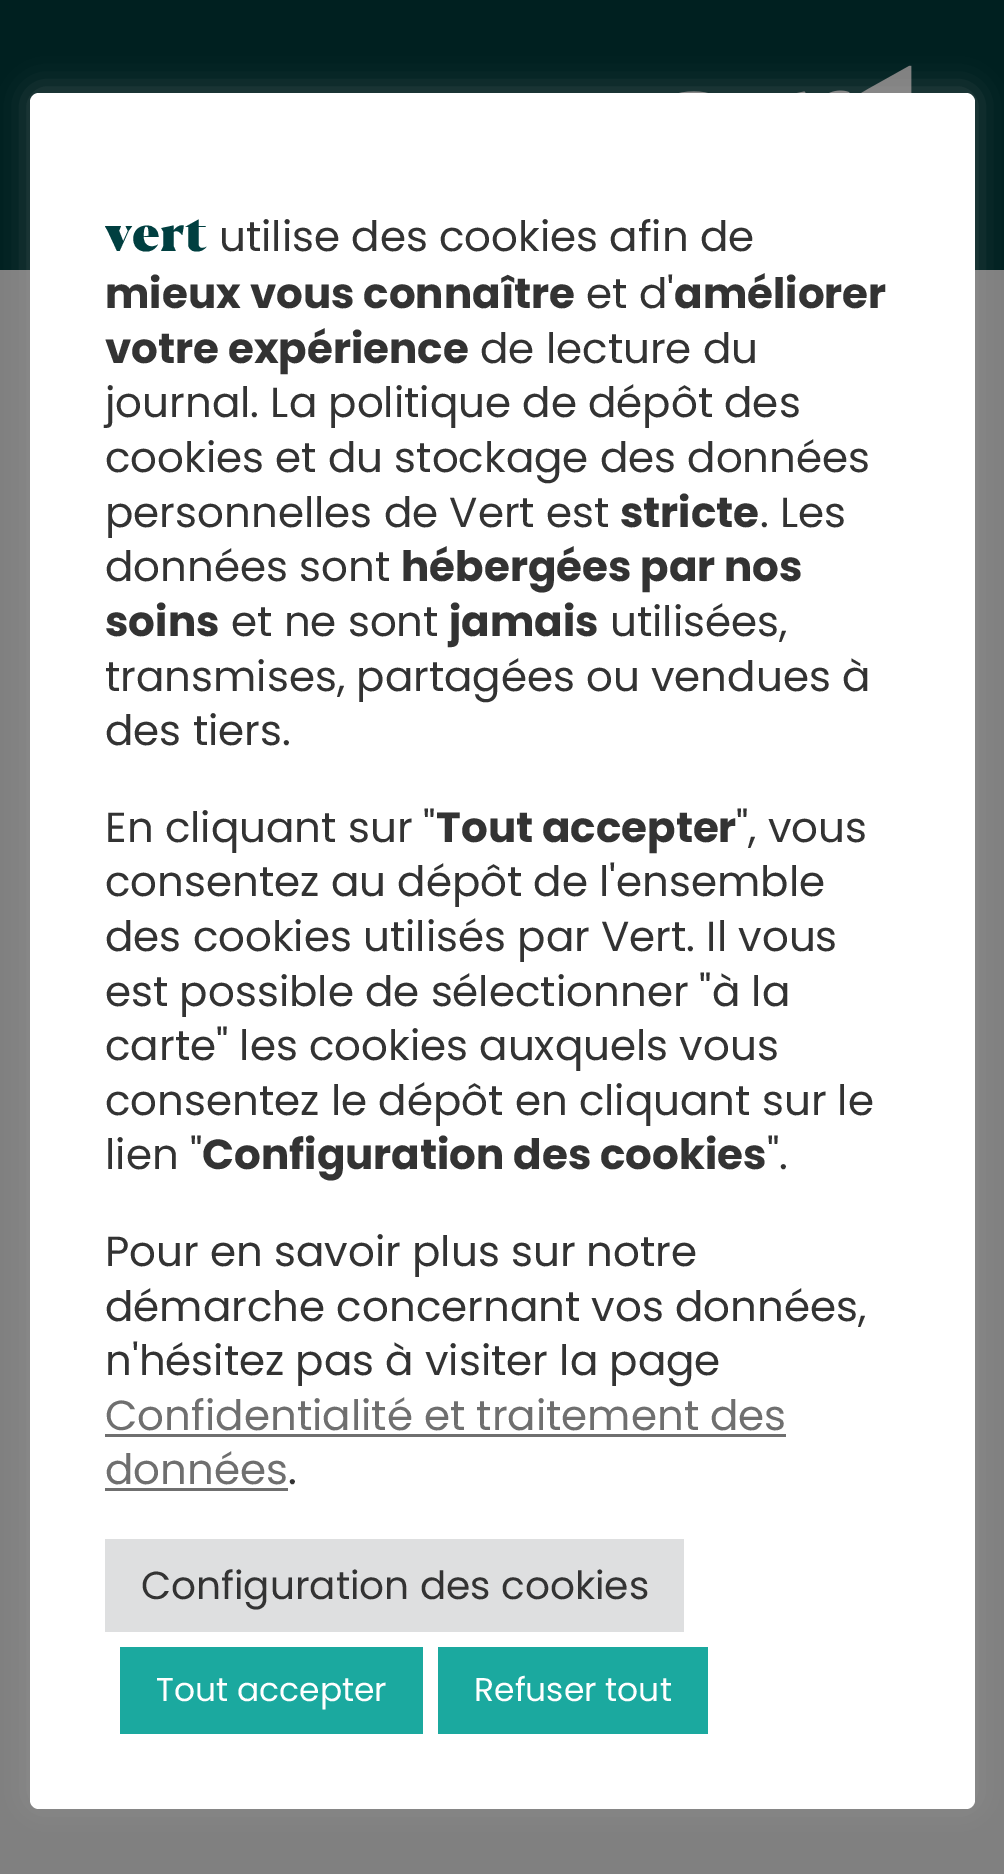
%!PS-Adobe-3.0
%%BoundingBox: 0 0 1004 1874
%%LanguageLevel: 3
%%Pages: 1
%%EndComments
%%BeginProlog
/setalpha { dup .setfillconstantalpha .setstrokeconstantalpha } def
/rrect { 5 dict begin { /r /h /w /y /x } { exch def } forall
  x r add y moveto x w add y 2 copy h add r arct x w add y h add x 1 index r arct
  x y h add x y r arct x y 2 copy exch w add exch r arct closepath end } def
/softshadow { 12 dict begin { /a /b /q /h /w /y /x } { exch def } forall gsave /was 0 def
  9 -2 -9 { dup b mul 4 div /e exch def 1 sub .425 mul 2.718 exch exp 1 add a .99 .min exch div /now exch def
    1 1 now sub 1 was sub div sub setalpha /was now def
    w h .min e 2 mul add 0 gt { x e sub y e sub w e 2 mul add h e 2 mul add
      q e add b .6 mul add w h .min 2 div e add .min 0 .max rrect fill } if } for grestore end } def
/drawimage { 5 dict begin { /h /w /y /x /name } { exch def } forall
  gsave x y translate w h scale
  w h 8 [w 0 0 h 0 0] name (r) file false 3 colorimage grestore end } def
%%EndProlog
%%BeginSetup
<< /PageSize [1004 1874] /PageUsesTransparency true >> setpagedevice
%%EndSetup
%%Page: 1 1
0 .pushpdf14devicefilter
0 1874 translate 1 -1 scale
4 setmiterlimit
0.502 setgray
0 0 1004 1874 rectfill
0 0.125 0.125 setrgbcolor
0 0 1004 270 rectfill
(images/1.raw) 679 65 233 28 drawimage
0.675 0.671 0.671 setrgbcolor
30 90 945 1716 9 15 0.3 softshadow
1 setgray
30 93 945 1716 9 rrect fill
0.435 setgray
105 1434 681 3 rectfill
105 1488 183 3 rectfill
0.871 0.875 0.878 setrgbcolor
105 1539 579 93 rectfill
0.106 0.663 0.624 setrgbcolor
120 1647 303 87 rectfill
438 1647 270 87 rectfill
/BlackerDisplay-Black [50 0 0 -50 0 0] selectfont
0 0.247 0.251 setrgbcolor
105 251 moveto (vert) show
/Poppins-Regular [42 0 0 -42 0 0] selectfont
0.2 setgray
219 251 moveto (utilise des cookies afin de) show
/Poppins-Bold [42 0 0 -42 0 0] selectfont
105 308 moveto (mieux vous connaître) show
/Poppins-Regular [42 0 0 -42 0 0] selectfont
586 308 moveto (et d') show
/Poppins-Bold [42 0 0 -42 0 0] selectfont
674 308 moveto (améliorer) show
105 363 moveto (votre expérience) show
/Poppins-Regular [42 0 0 -42 0 0] selectfont
480 363 moveto (de lecture du) show
105 417 moveto (journal. La politique de dépôt des) show
105 472 moveto (cookies et du stockage des données) show
105 527 moveto (personnelles de Vert est) show
/Poppins-Bold [42 0 0 -42 0 0] selectfont
620 527 moveto (stricte) show
/Poppins-Regular [42 0 0 -42 0 0] selectfont
760 527 moveto (. Les) show
105 581 moveto (données sont) show
/Poppins-Bold [42 0 0 -42 0 0] selectfont
401 581 moveto (hébergées par nos) show
105 636 moveto (soins) show
/Poppins-Regular [42 0 0 -42 0 0] selectfont
231 636 moveto (et ne sont) show
/Poppins-Bold [42 0 0 -42 0 0] selectfont
449 636 moveto (jamais) show
/Poppins-Regular [42 0 0 -42 0 0] selectfont
610 636 moveto (utilisées,) show
105 691 moveto (transmises, partagées ou vendues à) show
105 745 moveto (des tiers.) show
105 842 moveto (En cliquant sur ") show
/Poppins-Bold [42 0 0 -42 0 0] selectfont
436 842 moveto (Tout accepter) show
/Poppins-Regular [42 0 0 -42 0 0] selectfont
736 842 moveto (", vous) show
105 896 moveto (consentez au dépôt de l'ensemble) show
105 951 moveto (des cookies utilisés par Vert. Il vous) show
105 1006 moveto (est possible de sélectionner "à la) show
105 1060 moveto (carte" les cookies auxquels vous) show
105 1115 moveto (consentez le dépôt en cliquant sur le) show
105 1169 moveto (lien ") show
/Poppins-Bold [42 0 0 -42 0 0] selectfont
202 1169 moveto (Configuration des cookies) show
/Poppins-Regular [42 0 0 -42 0 0] selectfont
767 1169 moveto (".) show
105 1266 moveto (Pour en savoir plus sur notre) show
105 1321 moveto (démarche concernant vos données,) show
105 1375 moveto (n'hésitez pas à visiter la page) show
0.435 setgray
105 1430 moveto (Confidentialité et traitement des) show
105 1484 moveto (données) show
0.2 setgray
288 1484 moveto (.) show
/Poppins-Regular [39 0 0 -39 0 0] selectfont
141 1599 moveto (Configuration des cookies) show
/Poppins-Regular [33 0 0 -33 0 0] selectfont
1 setgray
156 1701 moveto (Tout accepter) show
474 1701 moveto (Refuser tout) show
.poppdf14devicefilter showpage
%%EOF
